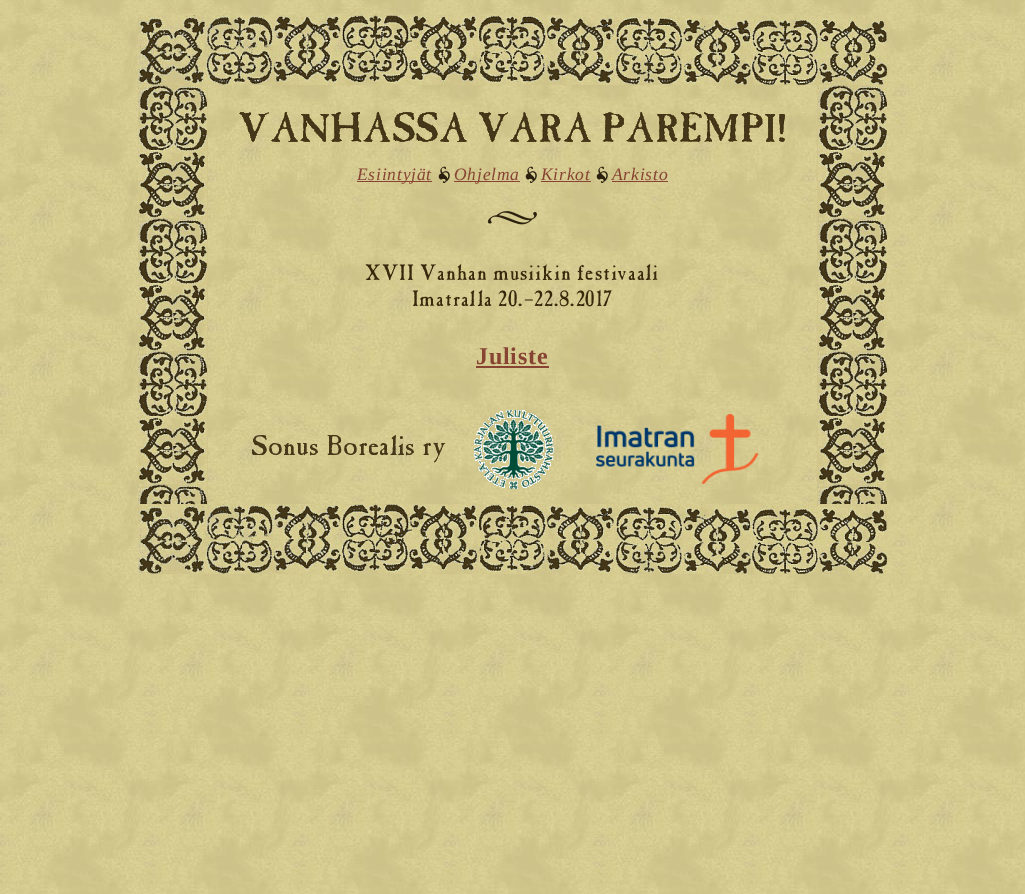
%!PS-Adobe-3.0
%%BoundingBox: 0 0 1025 894
%%LanguageLevel: 3
%%Pages: 1
%%EndComments
%%BeginProlog
/drawimage { 5 dict begin { /h /w /y /x /name } { exch def } forall
  gsave x y translate w h scale
  w h 8 [w 0 0 h 0 0] name (r) file false 3 colorimage grestore end } def
%%EndProlog
%%BeginSetup
<< /PageSize [1025 894] >> setpagedevice
%%EndSetup
%%Page: 1 1
0 894 translate 1 -1 scale
4 setmiterlimit
1 setgray
0 0 1025 894 rectfill
(images/1.raw) 0 0 1025 894 drawimage
(images/2.raw) 138 15 749 70 drawimage
(images/3.raw) 138 85 749 419 drawimage
(images/4.raw) 208 85 609 419 drawimage
(images/5.raw) 239 112 546 30 drawimage
0.533 0.267 0.2 setrgbcolor
357 181 75 1 rectfill
(images/6.raw) 438 166 12 17 drawimage
454 181 66 1 rectfill
(images/7.raw) 525 166 12 17 drawimage
541 181 50 1 rectfill
(images/8.raw) 596 166 12 17 drawimage
612 181 56 1 rectfill
(images/9.raw) 487 211 50 14 drawimage
476 366 73 2 rectfill
(images/10.raw) 252 435 194 28 drawimage
(images/11.raw) 474 410 80 79 drawimage
(images/12.raw) 596 414 162 70 drawimage
(images/2.raw) 138 504 749 70 drawimage
/LiberationSerif-Italic [17.5 0 0 -17.5 0 0] selectfont
357 180 moveto 0.8 0 (Esiintyjät) ashow
454 180 moveto 0.8 0 (Ohjelma) ashow
541 180 moveto 0.8 0 (Kirkot) ashow
612 180 moveto 0.8 0 (Arkisto) ashow
/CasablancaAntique-Regular [22.4 0 0 -22.4 0 0] selectfont
0.22 0.157 0.047 setrgbcolor
365 280 moveto 0.8 0 (XVII Vanhan musiikin festivaali) ashow
412 306 moveto 0.8 0 (Imatralla 20.–22.8.2017) ashow
/LiberationSerif-Bold [24 0 0 -24 0 0] selectfont
0.533 0.267 0.2 setrgbcolor
476 364 moveto 0.8 0 (Juliste) ashow
showpage
%%EOF
